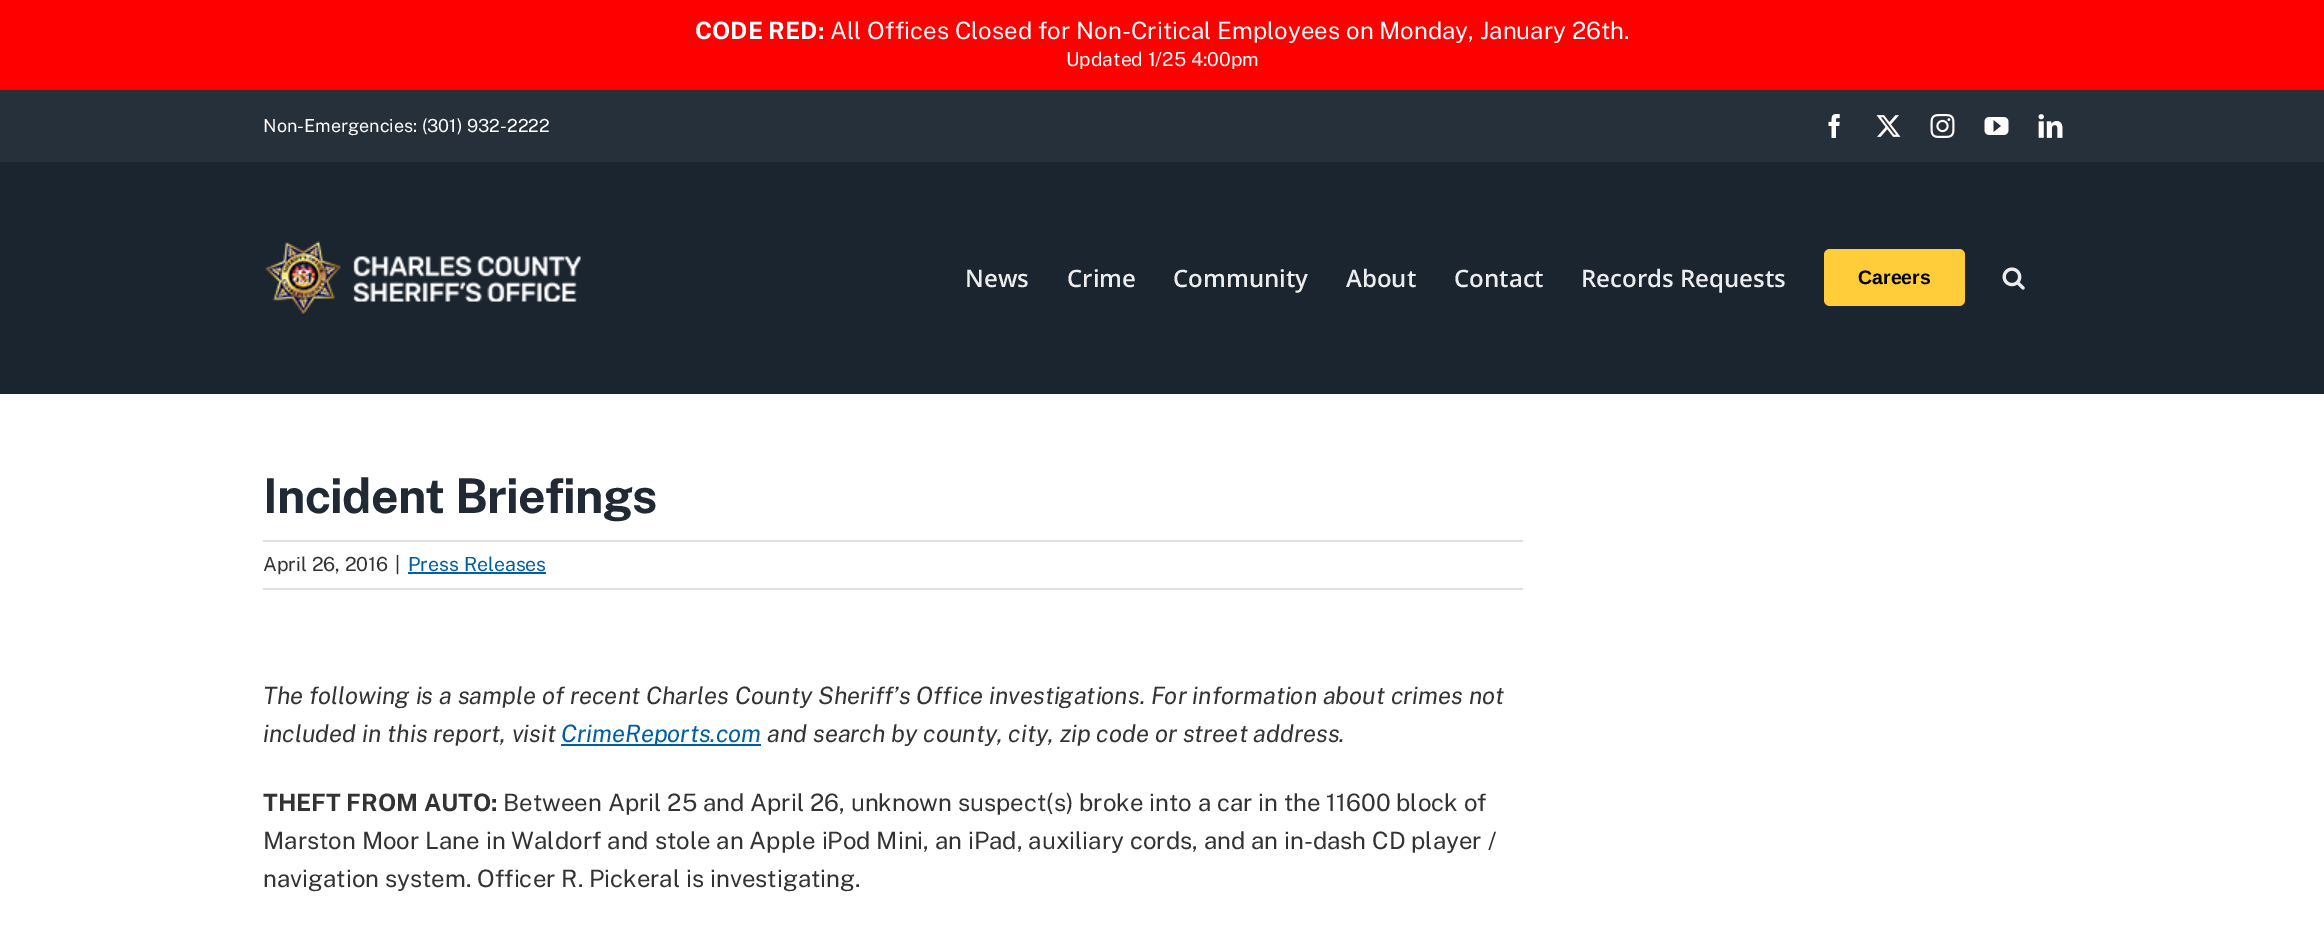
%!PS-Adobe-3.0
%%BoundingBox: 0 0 2324 941
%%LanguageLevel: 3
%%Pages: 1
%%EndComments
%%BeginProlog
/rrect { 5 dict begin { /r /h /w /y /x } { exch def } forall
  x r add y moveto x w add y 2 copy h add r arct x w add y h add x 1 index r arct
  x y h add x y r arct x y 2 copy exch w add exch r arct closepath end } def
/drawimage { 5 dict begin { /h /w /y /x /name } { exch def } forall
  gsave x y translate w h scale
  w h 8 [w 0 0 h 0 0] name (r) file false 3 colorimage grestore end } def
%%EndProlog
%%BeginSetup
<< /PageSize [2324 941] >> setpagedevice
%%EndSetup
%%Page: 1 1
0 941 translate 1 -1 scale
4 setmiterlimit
1 setgray
0 0 2324 941 rectfill
1 0 0 setrgbcolor
0 0 2324 90 rectfill
0.149 0.188 0.227 setrgbcolor
0 90 2324 72 rectfill
0.102 0.145 0.188 setrgbcolor
0 162 2324 232 rectfill
(images/1.raw) 1828 114 12 24 drawimage
(images/2.raw) 1876 115 25 22 drawimage
(images/3.raw) 1930 114 25 24 drawimage
(images/4.raw) 1984 117 25 18 drawimage
(images/5.raw) 2038 114 25 24 drawimage
(images/6.raw) 265 241 316 73 drawimage
1 0.804 0.227 setrgbcolor
1824 249 141 57 6 rrect fill
(images/7.raw) 2002 267 23 23 drawimage
0.878 0.871 0.871 setrgbcolor
263 540 1260 2 rectfill
263 588 1260 2 rectfill
0 0.369 0.635 setrgbcolor
408 572 138 2 rectfill
561 744 200 2 rectfill
/PublicSans-Bold [24 0 0 -24 0 0] selectfont
1 setgray
695 39 moveto (CODE RED:) show
/PublicSans-Regular [24 0 0 -24 0 0] selectfont
830 39 moveto (All Offices Closed for Non-Critical Employees on Monday, January 26th.) show
/PublicSans-Regular [19.25 0 0 -19.25 0 0] selectfont
1066 66 moveto (Updated 1/25 4:00pm) show
/PublicSans-Regular [18 0 0 -18 0 0] selectfont
263 132 moveto (Non-Emergencies: \(301\) 932-2222) show
/OpenSans-SemiBold [24 0 0 -24 0 0] selectfont
0.929 setgray
965 287 moveto (News) show
1067 287 moveto (Crime) show
1173 287 moveto (Community) show
1346 287 moveto (About) show
1454 287 moveto (Contact) show
1581 287 moveto (Records Requests) show
/LiberationSans-Bold [19.5 0 0 -19.5 0 0] selectfont
0 setgray
1858 284 moveto (Careers) show
/PublicSans-Bold [48 0 0 -48 0 0] selectfont
0.129 0.161 0.204 setrgbcolor
263 513 moveto -0.75 0 (Incident Briefings) ashow
/PublicSans-Regular [19.5 0 0 -19.5 0 0] selectfont
0.2 setgray
263 571 moveto (April 26, 2016) show
395 571 moveto (|) show
0 0.369 0.635 setrgbcolor
408 571 moveto (Press Releases) show
/PublicSans-Italic [24 0 0 -24 0 0] selectfont
0.2 setgray
263 704 moveto (The following is a sample of recent Charles County Sheriff’s Office investigations. For information about crimes not) show
263 742 moveto (included in this report, visit) show
0 0.369 0.635 setrgbcolor
561 742 moveto (CrimeReports.com) show
0.2 setgray
767 742 moveto (and search by county, city, zip code or street address.) show
/PublicSans-Bold [24 0 0 -24 0 0] selectfont
263 811 moveto (THEFT FROM AUTO:) show
/PublicSans-Regular [24 0 0 -24 0 0] selectfont
503 811 moveto (Between April 25 and April 26, unknown suspect\(s\) broke into a car in the 11600 block of) show
263 849 moveto (Marston Moor Lane in Waldorf and stole an Apple iPod Mini, an iPad, auxiliary cords, and an in-dash CD player /) show
263 887 moveto (navigation system. Officer R. Pickeral is investigating.) show
showpage
%%EOF
